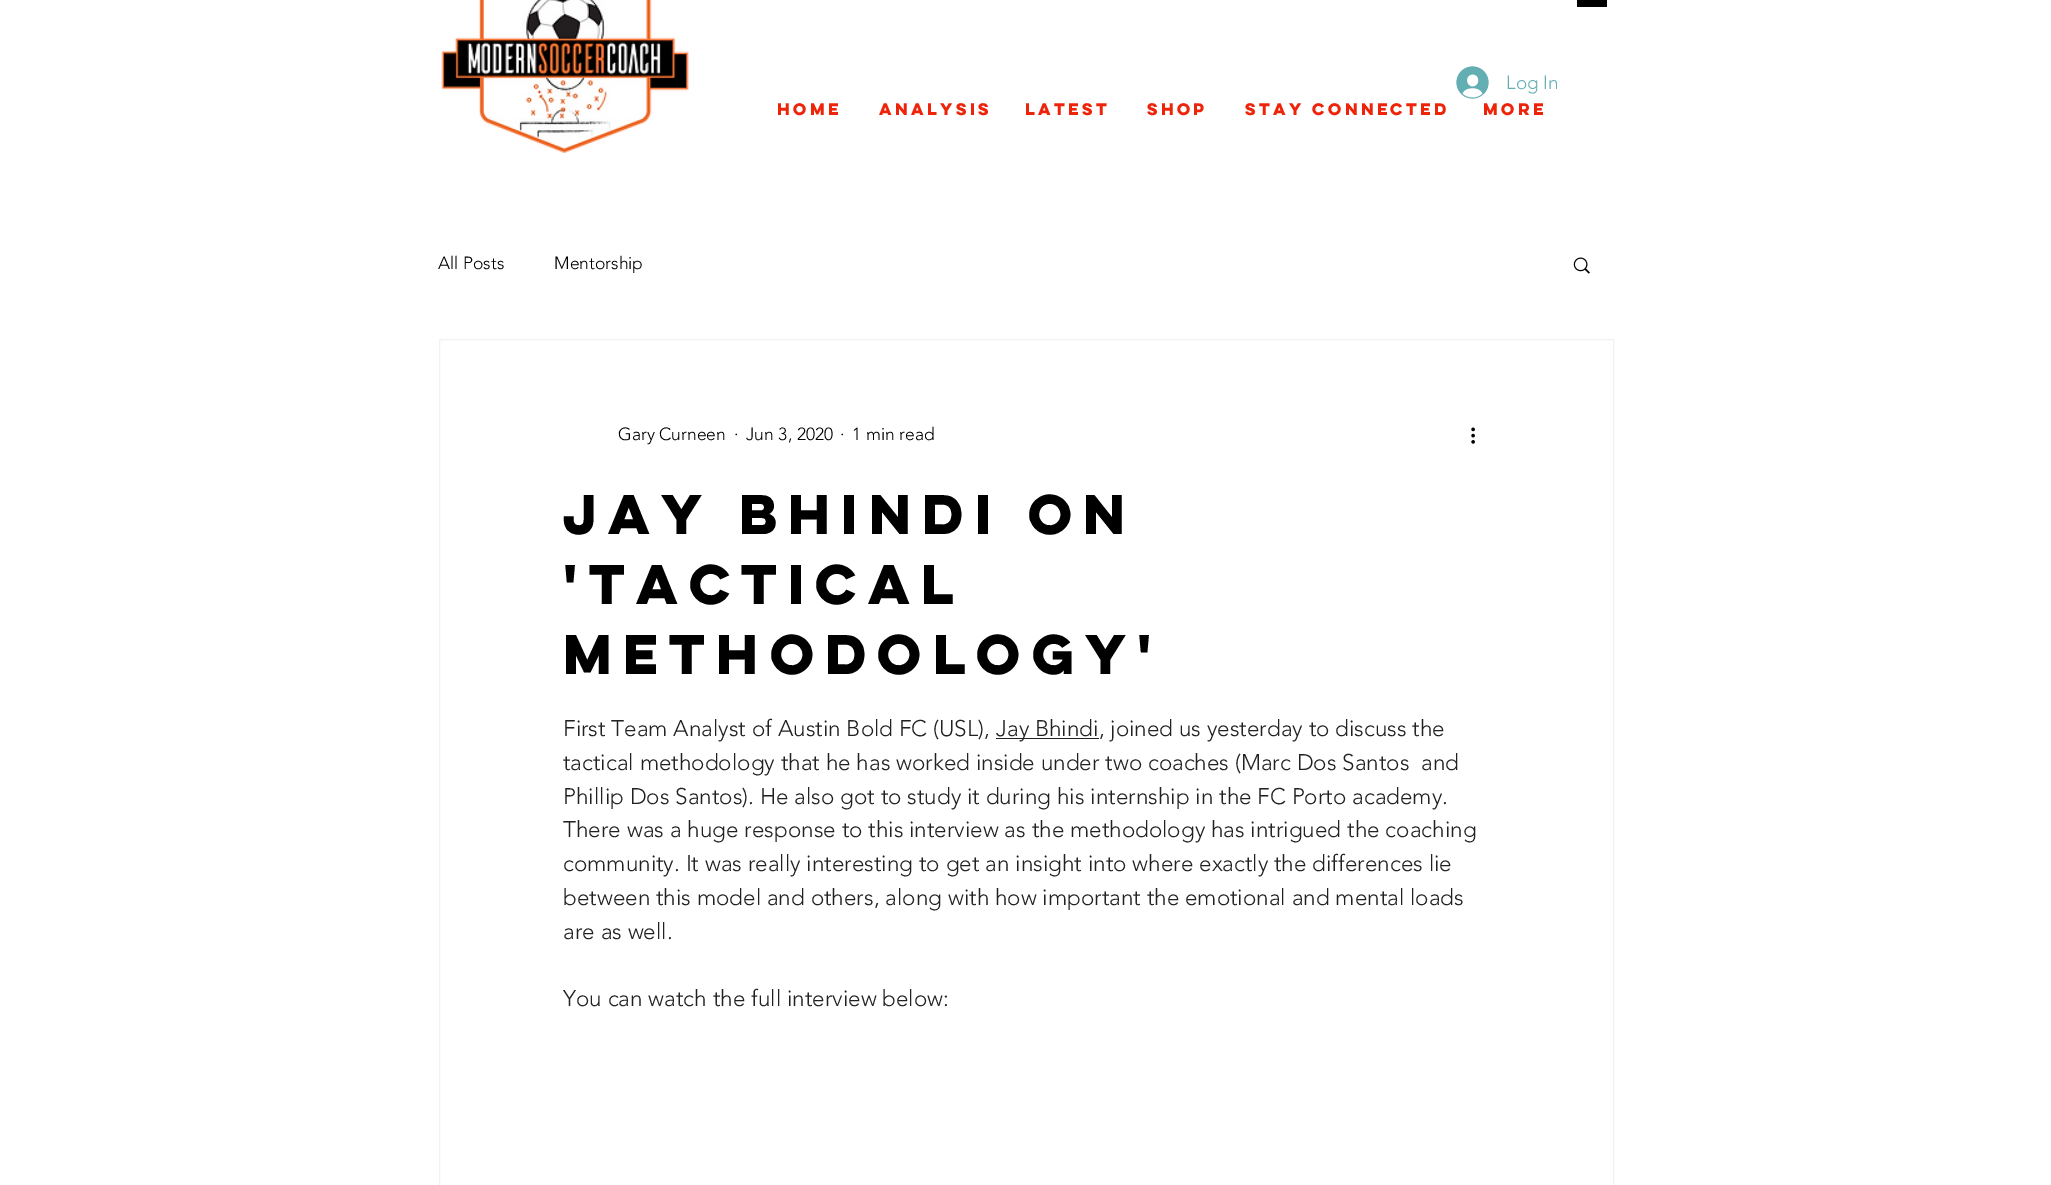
%!PS-Adobe-3.0
%%BoundingBox: 0 0 2051 1185
%%LanguageLevel: 3
%%Pages: 1
%%EndComments
%%BeginProlog
/drawimage { 5 dict begin { /h /w /y /x /name } { exch def } forall
  gsave x y translate w h scale
  w h 8 [w 0 0 h 0 0] name (r) file false 3 colorimage grestore end } def
%%EndProlog
%%BeginSetup
<< /PageSize [2051 1185] >> setpagedevice
%%EndSetup
%%Page: 1 1
0 1185 translate 1 -1 scale
4 setmiterlimit
1 setgray
0 0 2051 1185 rectfill
(images/1.raw) 441 0 248 153 drawimage
0 setgray
1577 0 30 7 rectfill
(images/2.raw) 1456 66 33 33 drawimage
(images/3.raw) 1573 257 17 17 drawimage
0.949 setgray
439.5 339.5 1174 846 rectstroke
(images/4.raw) 1471 427 4 17 drawimage
0.129 setgray
996 738 103 1 rectfill
/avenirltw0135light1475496-Light [19 0 0 -19 0 0] selectfont
0.384 0.682 0.702 setrgbcolor
1506 89 moveto (Log In) show
/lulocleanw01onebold-Bold [15 0 0 -15 0 0] selectfont
0.929 0.141 0.035 setrgbcolor
777 115 moveto (Home) show
879 115 moveto (Analysis) show
1025 115 moveto (Latest) show
1147 115 moveto (Shop) show
1245 115 moveto (Stay Connected) show
1483 115 moveto (More) show
/avenirltw0135light1475496-Light [17.5 0 0 -17.5 0 0] selectfont
0 setgray
438 269 moveto (All Posts) show
554 269 moveto (Mentorship) show
618 440 moveto (Gary Curneen) show
734 440 moveto (·) show
746 440 moveto (Jun 3, 2020) show
840 440 moveto (·) show
852 440 moveto (1 min read) show
/lulocleanw01onebold-Bold [50 0 0 -50 0 0] selectfont
563 534 moveto (Jay Bhindi on) show
563 604 moveto ('Tactical) show
563 674 moveto (Methodology') show
/avenirltw0135light1475496-Light [22.5 0 0 -22.5 0 0] selectfont
0.129 setgray
563 736 moveto (First Team Analyst of Austin Bold FC \(USL\),) show
996 736 moveto (Jay Bhindi, joined us yesterday to discuss the) show
563 770 moveto (tactical methodology that he has worked inside under two coaches \(Marc Dos Santos  and) show
563 804 moveto (Phillip Dos Santos\). He also got to study it during his internship in the FC Porto academy.) show
563 837 moveto (There was a huge response to this interview as the methodology has intrigued the coaching) show
563 871 moveto (community. It was really interesting to get an insight into where exactly the differences lie) show
563 905 moveto (between this model and others, along with how important the emotional and mental loads) show
563 939 moveto (are as well.) show
563 1006 moveto (You can watch the full interview below:) show
showpage
%%EOF
